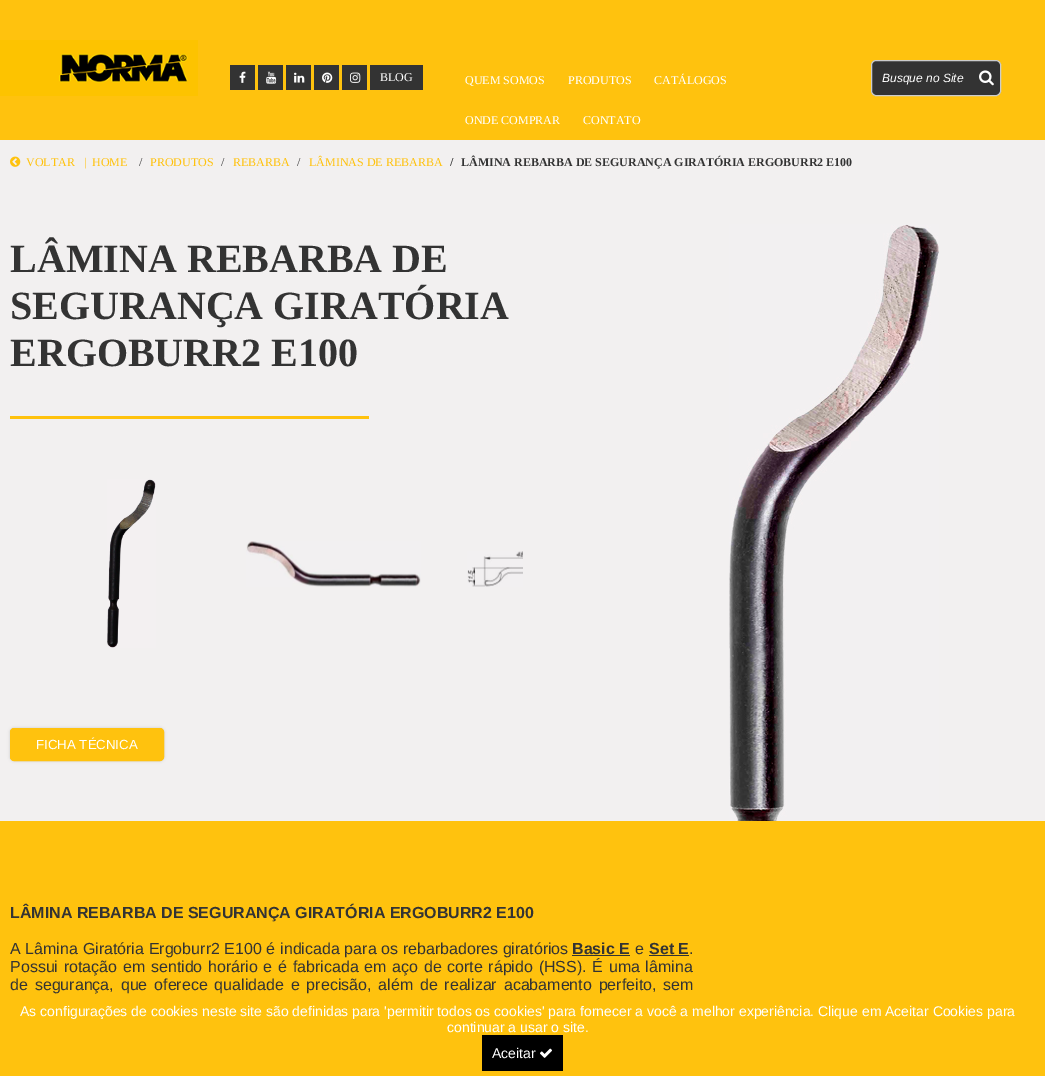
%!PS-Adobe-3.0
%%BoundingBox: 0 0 1045 1076
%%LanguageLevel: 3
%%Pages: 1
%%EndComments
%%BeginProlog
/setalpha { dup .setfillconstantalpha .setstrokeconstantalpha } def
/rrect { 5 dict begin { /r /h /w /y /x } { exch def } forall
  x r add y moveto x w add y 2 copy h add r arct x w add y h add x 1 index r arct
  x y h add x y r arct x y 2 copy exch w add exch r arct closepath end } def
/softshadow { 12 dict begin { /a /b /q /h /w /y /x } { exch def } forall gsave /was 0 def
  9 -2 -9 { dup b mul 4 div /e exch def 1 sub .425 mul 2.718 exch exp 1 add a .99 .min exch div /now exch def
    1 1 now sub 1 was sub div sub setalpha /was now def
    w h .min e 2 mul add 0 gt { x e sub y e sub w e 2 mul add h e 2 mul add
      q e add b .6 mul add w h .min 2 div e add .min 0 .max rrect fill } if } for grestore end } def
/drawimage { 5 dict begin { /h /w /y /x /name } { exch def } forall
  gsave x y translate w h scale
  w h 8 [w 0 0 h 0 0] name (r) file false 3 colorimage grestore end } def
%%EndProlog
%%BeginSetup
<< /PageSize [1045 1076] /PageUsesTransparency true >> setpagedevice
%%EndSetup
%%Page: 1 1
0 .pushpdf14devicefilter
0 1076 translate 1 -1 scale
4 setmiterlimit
0.949 0.941 0.941 setrgbcolor
0 0 1045 1076 rectfill
1 0.761 0.055 setrgbcolor
0 0 1045 140 rectfill
(images/1.raw) 0 40 198 56 drawimage
0.2 setgray
230 65 25 25 rectfill
(images/2.raw) 239 71 7 12 drawimage
258 65 25 25 rectfill
(images/3.raw) 266 71 11 13 drawimage
286 65 25 25 rectfill
(images/4.raw) 294 72 11 11 drawimage
314 65 25 25 rectfill
(images/5.raw) 322 72 11 11 drawimage
342 65 25 25 rectfill
(images/6.raw) 350 72 11 11 drawimage
370 65 53 25 rectfill
871.5 60.5 129 35 4.5 rrect gsave fill grestore
0.8 setgray
stroke
(images/7.raw) 979 70 15 16 drawimage
(images/8.raw) 10 156 11 11 drawimage
(images/9.raw) 729 224 210 597 drawimage
1 0.761 0.055 setrgbcolor
10 416 359 3 rectfill
(images/10.raw) 107 479 49 169 drawimage
(images/11.raw) 246 541 175 46 drawimage
(images/12.raw) 467 551 56 36 drawimage
0.8 setgray
10 728 154 33 4 1.5 1 softshadow
1 0.761 0.055 setrgbcolor
10.5 728.5 153 32 3.5 rrect gsave fill grestore
stroke
0 821 1045 255 rectfill
0.2 setgray
572 955 58 1 rectfill
649 955 40 1 rectfill
0 setgray
482 1035 81 36 rectfill
(images/13.raw) 540 1048 12 10 drawimage
/LiberationSerif-Regular [12 0 0 -12 0 0] selectfont
1 setgray
380 81 moveto (BLOG) show
465 84 moveto (QUEM SOMOS) show
568 84 moveto (PRODUTOS) show
654 84 moveto (CATÁLOGOS) show
465 124 moveto (ONDE COMPRAR) show
583 124 moveto (CONTATO) show
/LiberationSans-Italic [12 0 0 -12 0 0] selectfont
882 82 moveto (Busque no Site) show
/LiberationSerif-Regular [12 0 0 -12 0 0] selectfont
1 0.761 0.055 setrgbcolor
26 166 moveto (VOLTAR   |) show
92 166 moveto (HOME) show
0.2 setgray
139 166 moveto (/) show
1 0.761 0.055 setrgbcolor
150 166 moveto (PRODUTOS) show
0.2 setgray
221 166 moveto (/) show
1 0.761 0.055 setrgbcolor
233 166 moveto (REBARBA) show
0.2 setgray
297 166 moveto (/) show
1 0.761 0.055 setrgbcolor
309 166 moveto (LÂMINAS DE REBARBA) show
/LiberationSerif-Bold [12 0 0 -12 0 0] selectfont
0.2 setgray
450 166 moveto (/) show
461 166 moveto (LÂMINA REBARBA DE SEGURANÇA GIRATÓRIA ERGOBURR2 E100) show
/LiberationSerif-Bold [40 0 0 -40 0 0] selectfont
10 272 moveto (LÂMINA REBARBA DE) show
10 319 moveto (SEGURANÇA GIRATÓRIA) show
10 366 moveto (ERGOBURR2 E100) show
/LiberationSans-Regular [13.25 0 0 -13.25 0 0] selectfont
1 setgray
36 749 moveto (FICHA TÉCNICA) show
/LiberationSans-Bold [16 0 0 -16 0 0] selectfont
0.2 setgray
10 918 moveto (LÂMINA REBARBA DE SEGURANÇA GIRATÓRIA ERGOBURR2 E100) show
/LiberationSans-Regular [16 0 0 -16 0 0] selectfont
10 954 moveto 0.25 0 32 (A Lâmina Giratória Ergoburr2 E100 é indicada para os rebarbadores giratórios) widthshow
/LiberationSans-Bold [16 0 0 -16 0 0] selectfont
572 954 moveto (Basic E) show
/LiberationSans-Regular [16 0 0 -16 0 0] selectfont
635 954 moveto (e) show
/LiberationSans-Bold [16 0 0 -16 0 0] selectfont
649 954 moveto (Set E) show
/LiberationSans-Regular [16 0 0 -16 0 0] selectfont
689 954 moveto (.) show
10 972 moveto 1.25 0 32 (Possui rotação em sentido horário e é fabricada em aço de corte rápido \(HSS\). É uma lâmina) widthshow
10 990 moveto 2.4 0 32 (de segurança, que oferece qualidade e precisão, além de realizar acabamento perfeito, sem) widthshow
/LiberationSans-Regular [14 0 0 -14 0 0] selectfont
1 setgray
20 1016 moveto (As configurações de cookies neste site são definidas para 'permitir todos os cookies' para fornecer a você a melhor experiência. Clique em Aceitar Cookies para) show
447 1032 moveto (continuar a usar o site.) show
492 1058 moveto (Aceitar) show
.poppdf14devicefilter showpage
%%EOF
